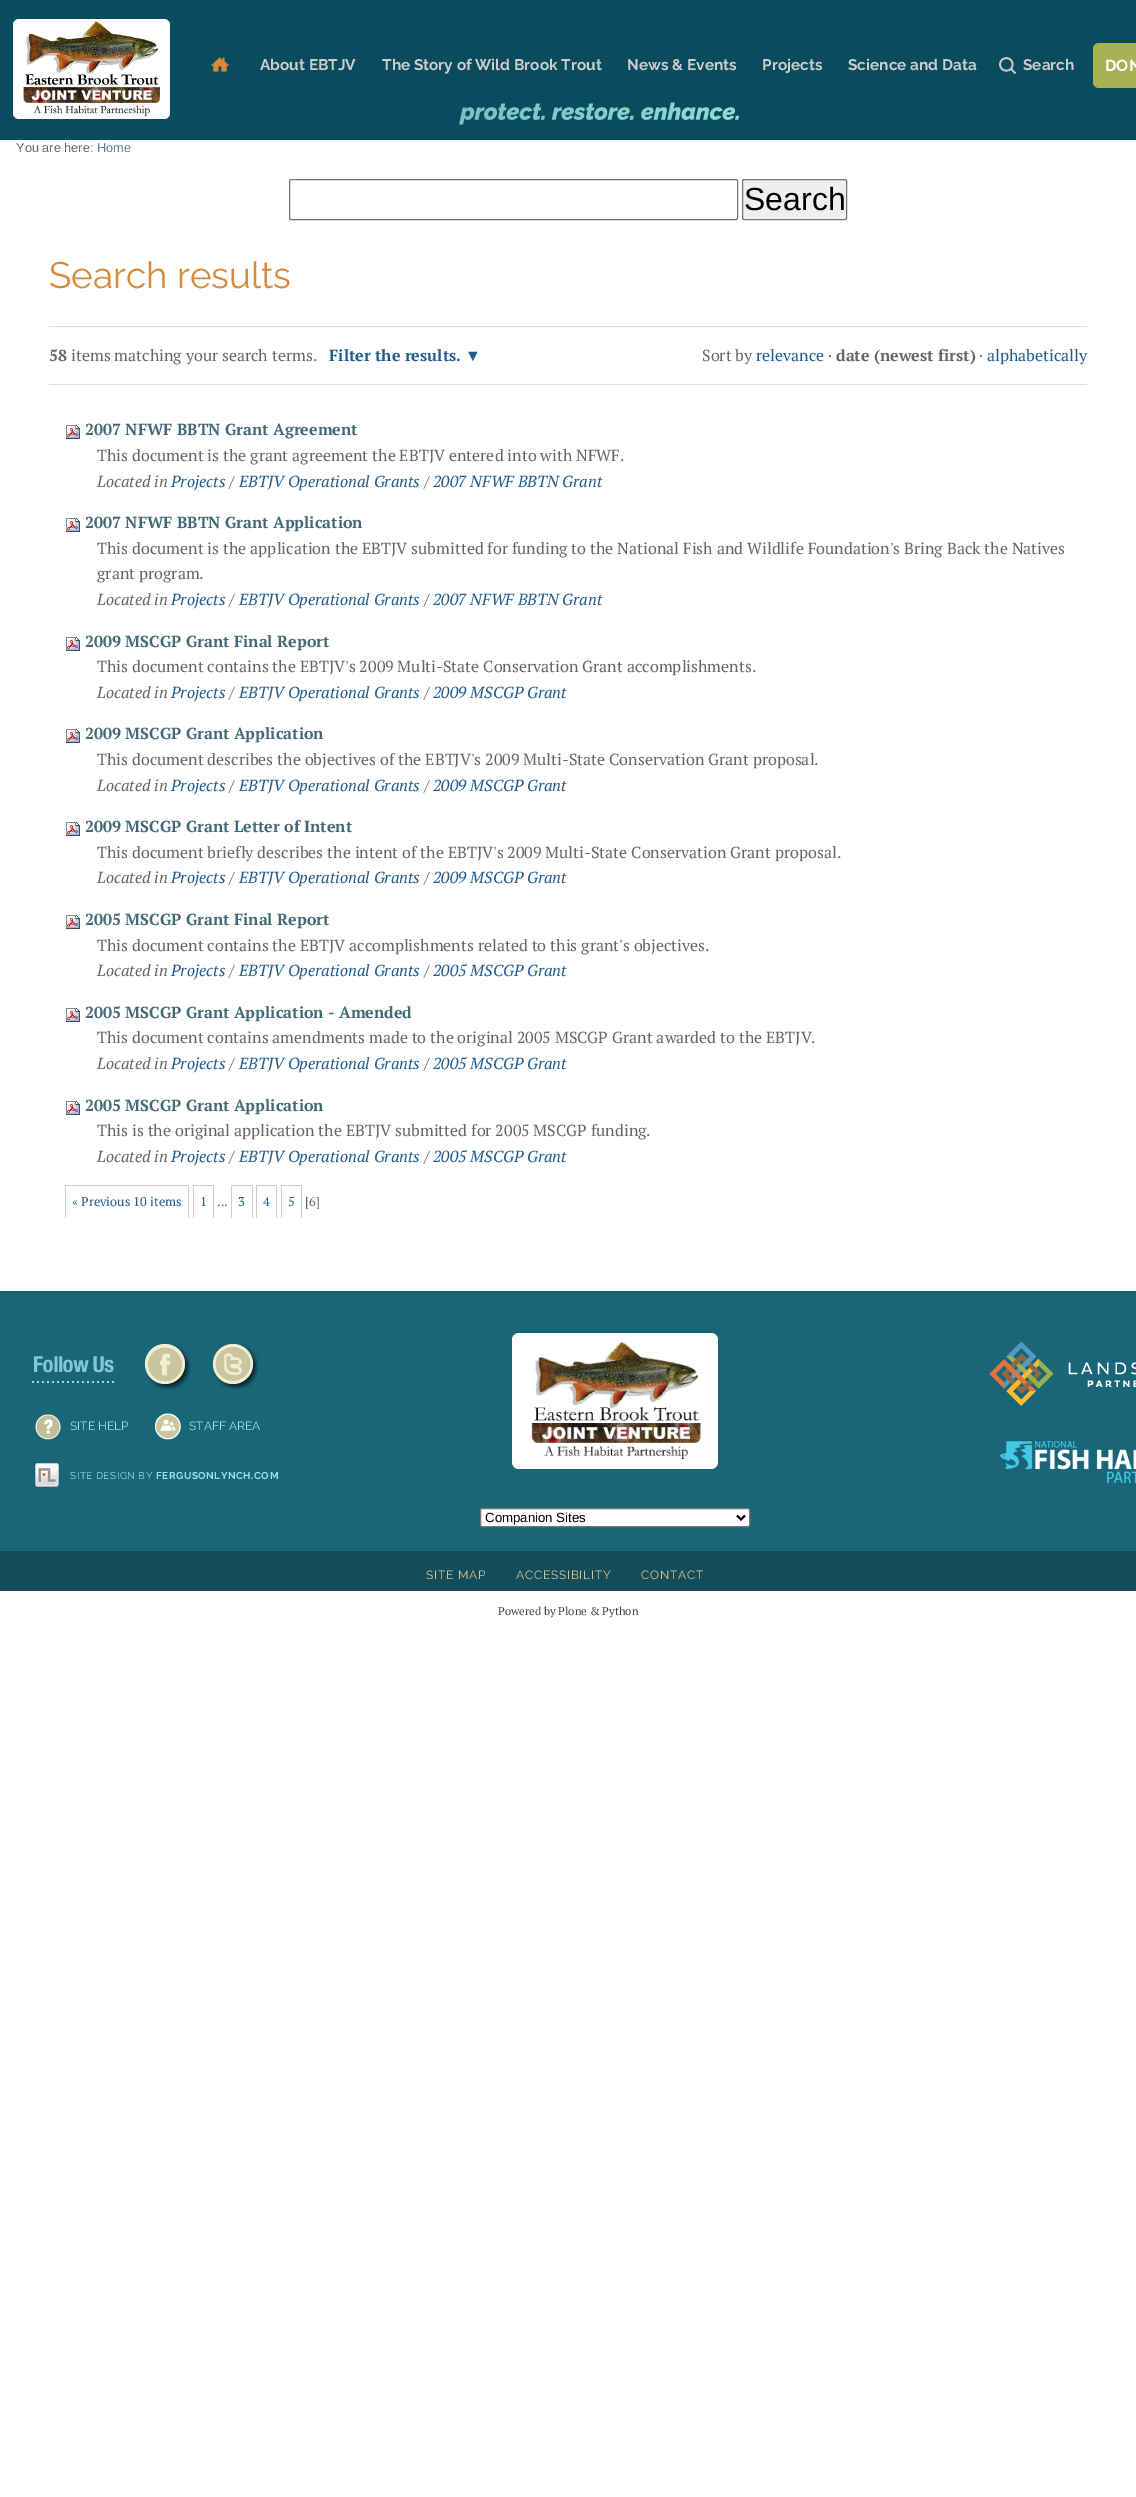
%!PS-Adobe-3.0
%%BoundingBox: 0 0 1136 2497
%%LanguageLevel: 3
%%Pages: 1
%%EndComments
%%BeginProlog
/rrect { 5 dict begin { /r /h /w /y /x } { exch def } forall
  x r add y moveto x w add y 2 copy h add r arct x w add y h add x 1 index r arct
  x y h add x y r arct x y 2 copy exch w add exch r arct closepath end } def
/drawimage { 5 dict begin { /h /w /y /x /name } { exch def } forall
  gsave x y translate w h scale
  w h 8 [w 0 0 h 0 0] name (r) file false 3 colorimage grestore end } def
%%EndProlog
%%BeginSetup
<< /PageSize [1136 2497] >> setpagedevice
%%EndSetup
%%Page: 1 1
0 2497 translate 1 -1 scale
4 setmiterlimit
1 setgray
0 0 1136 2497 rectfill
0.031 0.298 0.365 setrgbcolor
0 0 1136 140 rectfill
(images/1.raw) 459 102 280 23 drawimage
1 setgray
13 19 157 100 6 rrect fill
(images/2.raw) 23 20 138 97 drawimage
(images/3.raw) 211 57 19 15 drawimage
(images/4.raw) 999 57 17 17 drawimage
0.655 0.698 0.329 setrgbcolor
1093 43 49 45 6 rrect fill
0.463 setgray
289.5 179.5 448 40 1.5 rrect stroke
0.937 setgray
742.5 179.5 104 40 1.5 rrect gsave fill grestore
0.463 setgray
stroke
0.867 setgray
49 326 1038 1 rectfill
49 384 1038 1 rectfill
(images/5.raw) 66 425 14 14 drawimage
(images/5.raw) 66 518 14 14 drawimage
(images/5.raw) 66 637 14 14 drawimage
(images/5.raw) 66 729 14 14 drawimage
(images/5.raw) 66 822 14 14 drawimage
(images/5.raw) 66 915 14 14 drawimage
(images/5.raw) 66 1008 14 14 drawimage
(images/5.raw) 66 1101 14 14 drawimage
0.8 setgray
65 1185 124 1 rectfill
188 1185 1 33 rectfill
65 1185 1 33 rectfill
193 1185 21 1 rectfill
213 1185 1 33 rectfill
193 1185 1 33 rectfill
231 1185 22 1 rectfill
252 1185 1 33 rectfill
231 1185 1 33 rectfill
256 1185 21 1 rectfill
276 1185 1 33 rectfill
256 1185 1 33 rectfill
281 1185 21 1 rectfill
301 1185 1 33 rectfill
281 1185 1 33 rectfill
0.098 0.4 0.471 setrgbcolor
0 1291 1136 260 rectfill
0.075 0.302 0.357 setrgbcolor
0 1551 1136 40 rectfill
(images/6.raw) 32 1356 82 27 drawimage
(images/7.raw) 145 1344 46 46 drawimage
(images/8.raw) 213 1344 46 46 drawimage
(images/9.raw) 35 1414 26 26 drawimage
(images/10.raw) 155 1413 26 27 drawimage
(images/11.raw) 35 1463 24 24 drawimage
(images/12.raw) 989 1341 147 65 drawimage
(images/13.raw) 1000 1441 136 42 drawimage
(images/14.raw) 512 1333 206 136 drawimage
1 setgray
480.5 1508.5 269 18 1.5 rrect gsave fill grestore
0.463 setgray
stroke
0 setgray
2 setlinewidth
newpath 737 1515.5 moveto 741 1519.5 lineto 745 1515.5 lineto stroke
/Raleway-Bold [15.4 0 0 -15.4 0 0] selectfont
0.804 setgray
260 70 moveto (About EBTJV) show
382 70 moveto (The Story of Wild Brook Trout) show
627 70 moveto (News & Events) show
762 70 moveto (Projects) show
848 70 moveto (Science and Data) show
1023 70 moveto (Search) show
/Raleway-Bold [16 0 0 -16 0 0] selectfont
1 setgray
1105 71 moveto (DON) show
/LiberationSans-Regular [12.75 0 0 -12.75 0 0] selectfont
0.4 setgray
16 152 moveto (You are here:) show
0.365 0.518 0.553 setrgbcolor
97 152 moveto (Home) show
/LiberationSans-Regular [32 0 0 -32 0 0] selectfont
0 setgray
744 210 moveto (Search) show
/Raleway-Regular [36.75 0 0 -36.75 0 0] selectfont
0.839 0.541 0.227 setrgbcolor
49 288 moveto (Search results) show
/PTSerif-Bold [16 0 0 -16 0 0] selectfont
0.4 setgray
49 361 moveto (58) show
/PTSerif-Regular [16 0 0 -16 0 0] selectfont
71 361 moveto (items matching your search terms.) show
/PTSerif-Bold [16 0 0 -16 0 0] selectfont
0.125 0.361 0.565 setrgbcolor
329 361 moveto (Filter the results.) show
/LiberationSerif-Bold [16 0 0 -16 0 0] selectfont
465 361 moveto (▼) show
/PTSerif-Regular [16 0 0 -16 0 0] selectfont
0.4 setgray
702 361 moveto (Sort by) show
0.125 0.361 0.565 setrgbcolor
756 361 moveto (relevance) show
0.4 setgray
828 361 moveto (·) show
/PTSerif-Bold [16 0 0 -16 0 0] selectfont
836 361 moveto (date \(newest first\)) show
/PTSerif-Regular [16 0 0 -16 0 0] selectfont
979 361 moveto (·) show
0.125 0.361 0.565 setrgbcolor
987 361 moveto (alphabetically) show
/PTSerif-Bold [16 0 0 -16 0 0] selectfont
0.263 0.412 0.463 setrgbcolor
85 435 moveto (2007 NFWF BBTN Grant Agreement) show
/PTSerif-Regular [16 0 0 -16 0 0] selectfont
0.4 setgray
97 461 moveto (This document is the grant agreement the EBTJV entered into with NFWF.) show
/PTSerif-Italic [16 0 0 -16 0 0] selectfont
97 487 moveto (Located in) show
0.125 0.361 0.565 setrgbcolor
171 487 moveto (Projects) show
0.4 setgray
229 487 moveto (/) show
0.125 0.361 0.565 setrgbcolor
239 487 moveto (EBTJV Operational Grants) show
0.4 setgray
424 487 moveto (/) show
0.125 0.361 0.565 setrgbcolor
433 487 moveto (2007 NFWF BBTN Grant) show
/PTSerif-Bold [16 0 0 -16 0 0] selectfont
0.263 0.412 0.463 setrgbcolor
85 528 moveto (2007 NFWF BBTN Grant Application) show
/PTSerif-Regular [16 0 0 -16 0 0] selectfont
0.4 setgray
97 554 moveto (This document is the application the EBTJV submitted for funding to the National Fish and Wildlife Foundation's Bring Back the Natives) show
97 579 moveto (grant program.) show
/PTSerif-Italic [16 0 0 -16 0 0] selectfont
97 605 moveto (Located in) show
0.125 0.361 0.565 setrgbcolor
171 605 moveto (Projects) show
0.4 setgray
229 605 moveto (/) show
0.125 0.361 0.565 setrgbcolor
239 605 moveto (EBTJV Operational Grants) show
0.4 setgray
424 605 moveto (/) show
0.125 0.361 0.565 setrgbcolor
433 605 moveto (2007 NFWF BBTN Grant) show
/PTSerif-Bold [16 0 0 -16 0 0] selectfont
0.263 0.412 0.463 setrgbcolor
85 647 moveto (2009 MSCGP Grant Final Report) show
/PTSerif-Regular [16 0 0 -16 0 0] selectfont
0.4 setgray
97 672 moveto (This document contains the EBTJV's 2009 Multi-State Conservation Grant accomplishments.) show
/PTSerif-Italic [16 0 0 -16 0 0] selectfont
97 698 moveto (Located in) show
0.125 0.361 0.565 setrgbcolor
171 698 moveto (Projects) show
0.4 setgray
229 698 moveto (/) show
0.125 0.361 0.565 setrgbcolor
239 698 moveto (EBTJV Operational Grants) show
0.4 setgray
424 698 moveto (/) show
0.125 0.361 0.565 setrgbcolor
433 698 moveto (2009 MSCGP Grant) show
/PTSerif-Bold [16 0 0 -16 0 0] selectfont
0.263 0.412 0.463 setrgbcolor
85 739 moveto (2009 MSCGP Grant Application) show
/PTSerif-Regular [16 0 0 -16 0 0] selectfont
0.4 setgray
97 765 moveto (This document describes the objectives of the EBTJV's 2009 Multi-State Conservation Grant proposal.) show
/PTSerif-Italic [16 0 0 -16 0 0] selectfont
97 791 moveto (Located in) show
0.125 0.361 0.565 setrgbcolor
171 791 moveto (Projects) show
0.4 setgray
229 791 moveto (/) show
0.125 0.361 0.565 setrgbcolor
239 791 moveto (EBTJV Operational Grants) show
0.4 setgray
424 791 moveto (/) show
0.125 0.361 0.565 setrgbcolor
433 791 moveto (2009 MSCGP Grant) show
/PTSerif-Bold [16 0 0 -16 0 0] selectfont
0.263 0.412 0.463 setrgbcolor
85 832 moveto (2009 MSCGP Grant Letter of Intent) show
/PTSerif-Regular [16 0 0 -16 0 0] selectfont
0.4 setgray
97 858 moveto (This document briefly describes the intent of the EBTJV's 2009 Multi-State Conservation Grant proposal.) show
/PTSerif-Italic [16 0 0 -16 0 0] selectfont
97 883 moveto (Located in) show
0.125 0.361 0.565 setrgbcolor
171 883 moveto (Projects) show
0.4 setgray
229 883 moveto (/) show
0.125 0.361 0.565 setrgbcolor
239 883 moveto (EBTJV Operational Grants) show
0.4 setgray
424 883 moveto (/) show
0.125 0.361 0.565 setrgbcolor
433 883 moveto (2009 MSCGP Grant) show
/PTSerif-Bold [16 0 0 -16 0 0] selectfont
0.263 0.412 0.463 setrgbcolor
85 925 moveto (2005 MSCGP Grant Final Report) show
/PTSerif-Regular [16 0 0 -16 0 0] selectfont
0.4 setgray
97 951 moveto (This document contains the EBTJV accomplishments related to this grant's objectives.) show
/PTSerif-Italic [16 0 0 -16 0 0] selectfont
97 976 moveto (Located in) show
0.125 0.361 0.565 setrgbcolor
171 976 moveto (Projects) show
0.4 setgray
229 976 moveto (/) show
0.125 0.361 0.565 setrgbcolor
239 976 moveto (EBTJV Operational Grants) show
0.4 setgray
424 976 moveto (/) show
0.125 0.361 0.565 setrgbcolor
433 976 moveto (2005 MSCGP Grant) show
/PTSerif-Bold [16 0 0 -16 0 0] selectfont
0.263 0.412 0.463 setrgbcolor
85 1018 moveto (2005 MSCGP Grant Application - Amended) show
/PTSerif-Regular [16 0 0 -16 0 0] selectfont
0.4 setgray
97 1043 moveto (This document contains amendments made to the original 2005 MSCGP Grant awarded to the EBTJV.) show
/PTSerif-Italic [16 0 0 -16 0 0] selectfont
97 1069 moveto (Located in) show
0.125 0.361 0.565 setrgbcolor
171 1069 moveto (Projects) show
0.4 setgray
229 1069 moveto (/) show
0.125 0.361 0.565 setrgbcolor
239 1069 moveto (EBTJV Operational Grants) show
0.4 setgray
424 1069 moveto (/) show
0.125 0.361 0.565 setrgbcolor
433 1069 moveto (2005 MSCGP Grant) show
/PTSerif-Bold [16 0 0 -16 0 0] selectfont
0.263 0.412 0.463 setrgbcolor
85 1111 moveto (2005 MSCGP Grant Application) show
/PTSerif-Regular [16 0 0 -16 0 0] selectfont
0.4 setgray
97 1136 moveto (This is the original application the EBTJV submitted for 2005 MSCGP funding.) show
/PTSerif-Italic [16 0 0 -16 0 0] selectfont
97 1162 moveto (Located in) show
0.125 0.361 0.565 setrgbcolor
171 1162 moveto (Projects) show
0.4 setgray
229 1162 moveto (/) show
0.125 0.361 0.565 setrgbcolor
239 1162 moveto (EBTJV Operational Grants) show
0.4 setgray
424 1162 moveto (/) show
0.125 0.361 0.565 setrgbcolor
433 1162 moveto (2005 MSCGP Grant) show
/PTSerif-Regular [12.75 0 0 -12.75 0 0] selectfont
72 1206 moveto (« Previous 10 items) show
200 1206 moveto (1) show
0.4 setgray
217 1206 moveto (...) show
0.125 0.361 0.565 setrgbcolor
238 1206 moveto (3) show
263 1206 moveto (4) show
288 1206 moveto (5) show
0.4 setgray
305 1206 moveto ([6]) show
/Raleway-Regular [12 0 0 -12 0 0] selectfont
0.604 0.875 0.945 setrgbcolor
70 1430 moveto (SITE HELP) show
189 1430 moveto (STAFF AREA) show
/Raleway-Regular [10 0 0 -10 0 0] selectfont
70 1479 moveto 0.5 0 (SITE DESIGN BY) ashow
/Raleway-Bold [10 0 0 -10 0 0] selectfont
156 1479 moveto 0.5 0 (FERGUSONLYNCH.COM) ashow
/LiberationSans-Regular [13.25 0 0 -13.25 0 0] selectfont
0 setgray
485 1522 moveto (Companion Sites) show
/Raleway-Regular [12 0 0 -12 0 0] selectfont
0.855 0.765 0.576 setrgbcolor
426 1579 moveto 0.75 0 (SITE MAP) ashow
516 1579 moveto 0.75 0 (ACCESSIBILITY) ashow
641 1579 moveto 0.75 0 (CONTACT) ashow
/PTSerif-Regular [11.25 0 0 -11.25 0 0] selectfont
0.267 setgray
498 1615 moveto (Powered by Plone & Python) show
showpage
%%EOF
